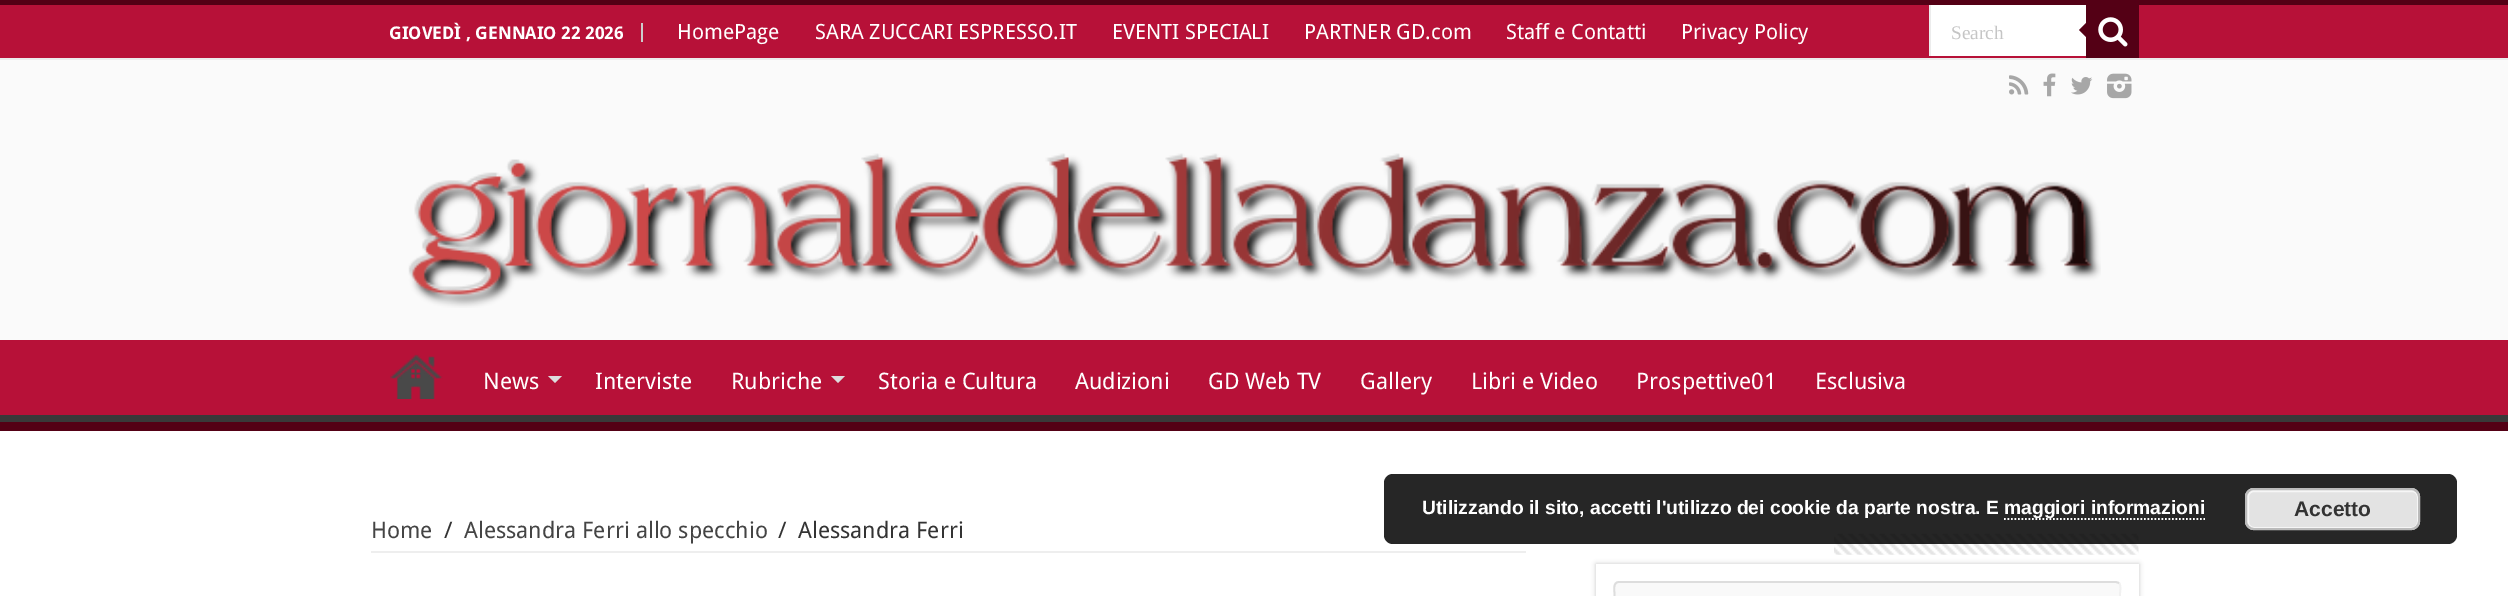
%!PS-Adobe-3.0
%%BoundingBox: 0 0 2508 596
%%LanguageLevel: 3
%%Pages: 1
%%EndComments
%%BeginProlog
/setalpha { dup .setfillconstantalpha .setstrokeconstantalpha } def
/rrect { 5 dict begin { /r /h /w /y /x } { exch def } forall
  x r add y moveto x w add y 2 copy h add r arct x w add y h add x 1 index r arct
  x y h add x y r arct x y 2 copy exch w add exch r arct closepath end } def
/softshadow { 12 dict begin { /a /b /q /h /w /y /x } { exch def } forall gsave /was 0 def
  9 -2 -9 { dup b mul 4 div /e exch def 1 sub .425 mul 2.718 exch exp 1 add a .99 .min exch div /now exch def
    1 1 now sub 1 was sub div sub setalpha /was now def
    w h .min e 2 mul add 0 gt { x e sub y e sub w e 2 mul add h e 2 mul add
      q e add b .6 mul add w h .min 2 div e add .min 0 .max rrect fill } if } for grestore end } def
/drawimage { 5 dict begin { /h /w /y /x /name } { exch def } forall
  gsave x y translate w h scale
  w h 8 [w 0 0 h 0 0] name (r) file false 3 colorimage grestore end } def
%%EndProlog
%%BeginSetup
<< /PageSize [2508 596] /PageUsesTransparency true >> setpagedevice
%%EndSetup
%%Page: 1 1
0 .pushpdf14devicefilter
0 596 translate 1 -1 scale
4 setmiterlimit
1 setgray
0 0 2508 596 rectfill
0.98 setgray
0 60 2508 280 rectfill
0.329 0 0.082 setrgbcolor
0 0 2508 5 rectfill
0.718 0.067 0.22 setrgbcolor
0 5 2508 53 rectfill
0.925 setgray
0 58 2508 2 rectfill
0.8 setgray
641 23 2 19 rectfill
1 setgray
1931 5 155 51 rectfill
0.925 setgray
1929 5 2 51 rectfill
0.329 0 0.082 setrgbcolor
2086 5 53 53 rectfill
(images/1.raw) 2098 17 30 30 drawimage
newpath 2086 23 moveto 2086 37 lineto 2079 30 lineto closepath fill
(images/2.raw) 2009 75 20 20 drawimage
(images/3.raw) 2043 73 13 24 drawimage
(images/4.raw) 2071 77 22 18 drawimage
(images/5.raw) 2107 73 25 26 drawimage
(images/6.raw) 408 153 1693 155 drawimage
0.718 0.067 0.22 setrgbcolor
0 340 2508 75 rectfill
gsave
0 340 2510 82 rectclip
0.224 setgray
newpath -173 166 moveto 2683 166 lineto 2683 595 lineto -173 595 lineto closepath -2 329 moveto 2508 329 lineto 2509 329 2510 330 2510 331 curveto 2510 413 lineto 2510 414 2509 415 2508 415 curveto -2 415 lineto -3 415 -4 414 -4 413 curveto -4 331 lineto -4 330 -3 329 -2 329 curveto closepath eofill
grestore
0.329 0 0.082 setrgbcolor
0 422 2508 9 rectfill
(images/7.raw) 390 354 53 45 drawimage
0.867 setgray
newpath 548 376 moveto 562 376 lineto 555 383 lineto closepath fill
newpath 831 376 moveto 845 376 lineto 838 383 lineto closepath fill
0.933 setgray
371 551 1155 2 rectfill
(images/8.raw) 1834 533 305 22 drawimage
0.792 setgray
1596 564 543 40 0 2.5 1 softshadow
1 setgray
1596 564 543 32 rectfill
0.976 setgray
1614 581 507 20 5 rrect fill
0.945 setgray
1.8 setlinewidth
newpath 2119 583 moveto 2121.5 585.5 2120 592 2120 594 curveto 2120 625.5 lineto 2120 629 2122 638 2116 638 curveto 1618.5 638 lineto 1615.5 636.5 lineto stroke
0.867 setgray
newpath 1615.5 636.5 moveto 1613 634 1614.5 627.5 1614.5 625.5 curveto 1614.5 594 lineto 1614.5 591 1612.5 582 1619 582 curveto 2116 582 lineto 2119 583 lineto stroke
0.85 setalpha
0 setgray
1384 474 1073 70 9 rrect fill
1 setalpha
1 setgray
[1.75 1.75] 0 setdash
newpath 2004 519 moveto 2205 519 lineto stroke
0.89 setgray
2245 488 175 42 9 rrect fill
0.965 setgray
2 setlinewidth
[] 0 setdash
2248 491 170 37 6 rrect stroke
0.733 setgray
2246 489 173 40 8 rrect stroke
/DroidSans-Bold [17.5 0 0 -17.5 0 0] selectfont
1 setgray
389 39 moveto (GIOVEDÌ , GENNAIO 22 2026) show
/DroidSans-Regular [21 0 0 -21 0 0] selectfont
677 39 moveto (HomePage) show
815 39 moveto (SARA ZUCCARI ESPRESSO.IT) show
1112 39 moveto (EVENTI SPECIALI) show
1304 39 moveto (PARTNER GD.com) show
1506 39 moveto (Staff e Contatti) show
1681 39 moveto (Privacy Policy) show
/LiberationSerif-Regular [19.25 0 0 -19.25 0 0] selectfont
0.773 setgray
1951 39 moveto (Search) show
/DroidSans-Regular [22.75 0 0 -22.75 0 0] selectfont
1 setgray
483 389 moveto (News) show
595 389 moveto (Interviste) show
731 389 moveto (Rubriche) show
878 389 moveto (Storia e Cultura) show
1075 389 moveto (Audizioni) show
1208 389 moveto (GD Web TV) show
1360 389 moveto (Gallery) show
1471 389 moveto (Libri e Video) show
1636 389 moveto (Prospettive01) show
1815 389 moveto (Esclusiva) show
0.267 setgray
371 538 moveto (Home) show
0.2 setgray
444 538 moveto (/) show
0.267 setgray
464 538 moveto (Alessandra Ferri allo specchio) show
0.2 setgray
778 538 moveto (/) show
798 538 moveto (Alessandra Ferri) show
/LiberationSans-Bold [19.25 0 0 -19.25 0 0] selectfont
1 setgray
1422 514 moveto (Utilizzando il sito, accetti l'utilizzo dei cookie da parte nostra. E) show
2004 514 moveto (maggiori informazioni) show
/LiberationSans-Bold [21 0 0 -21 0 0] selectfont
0.2 setgray
2294 516 moveto (Accetto) show
.poppdf14devicefilter showpage
%%EOF
